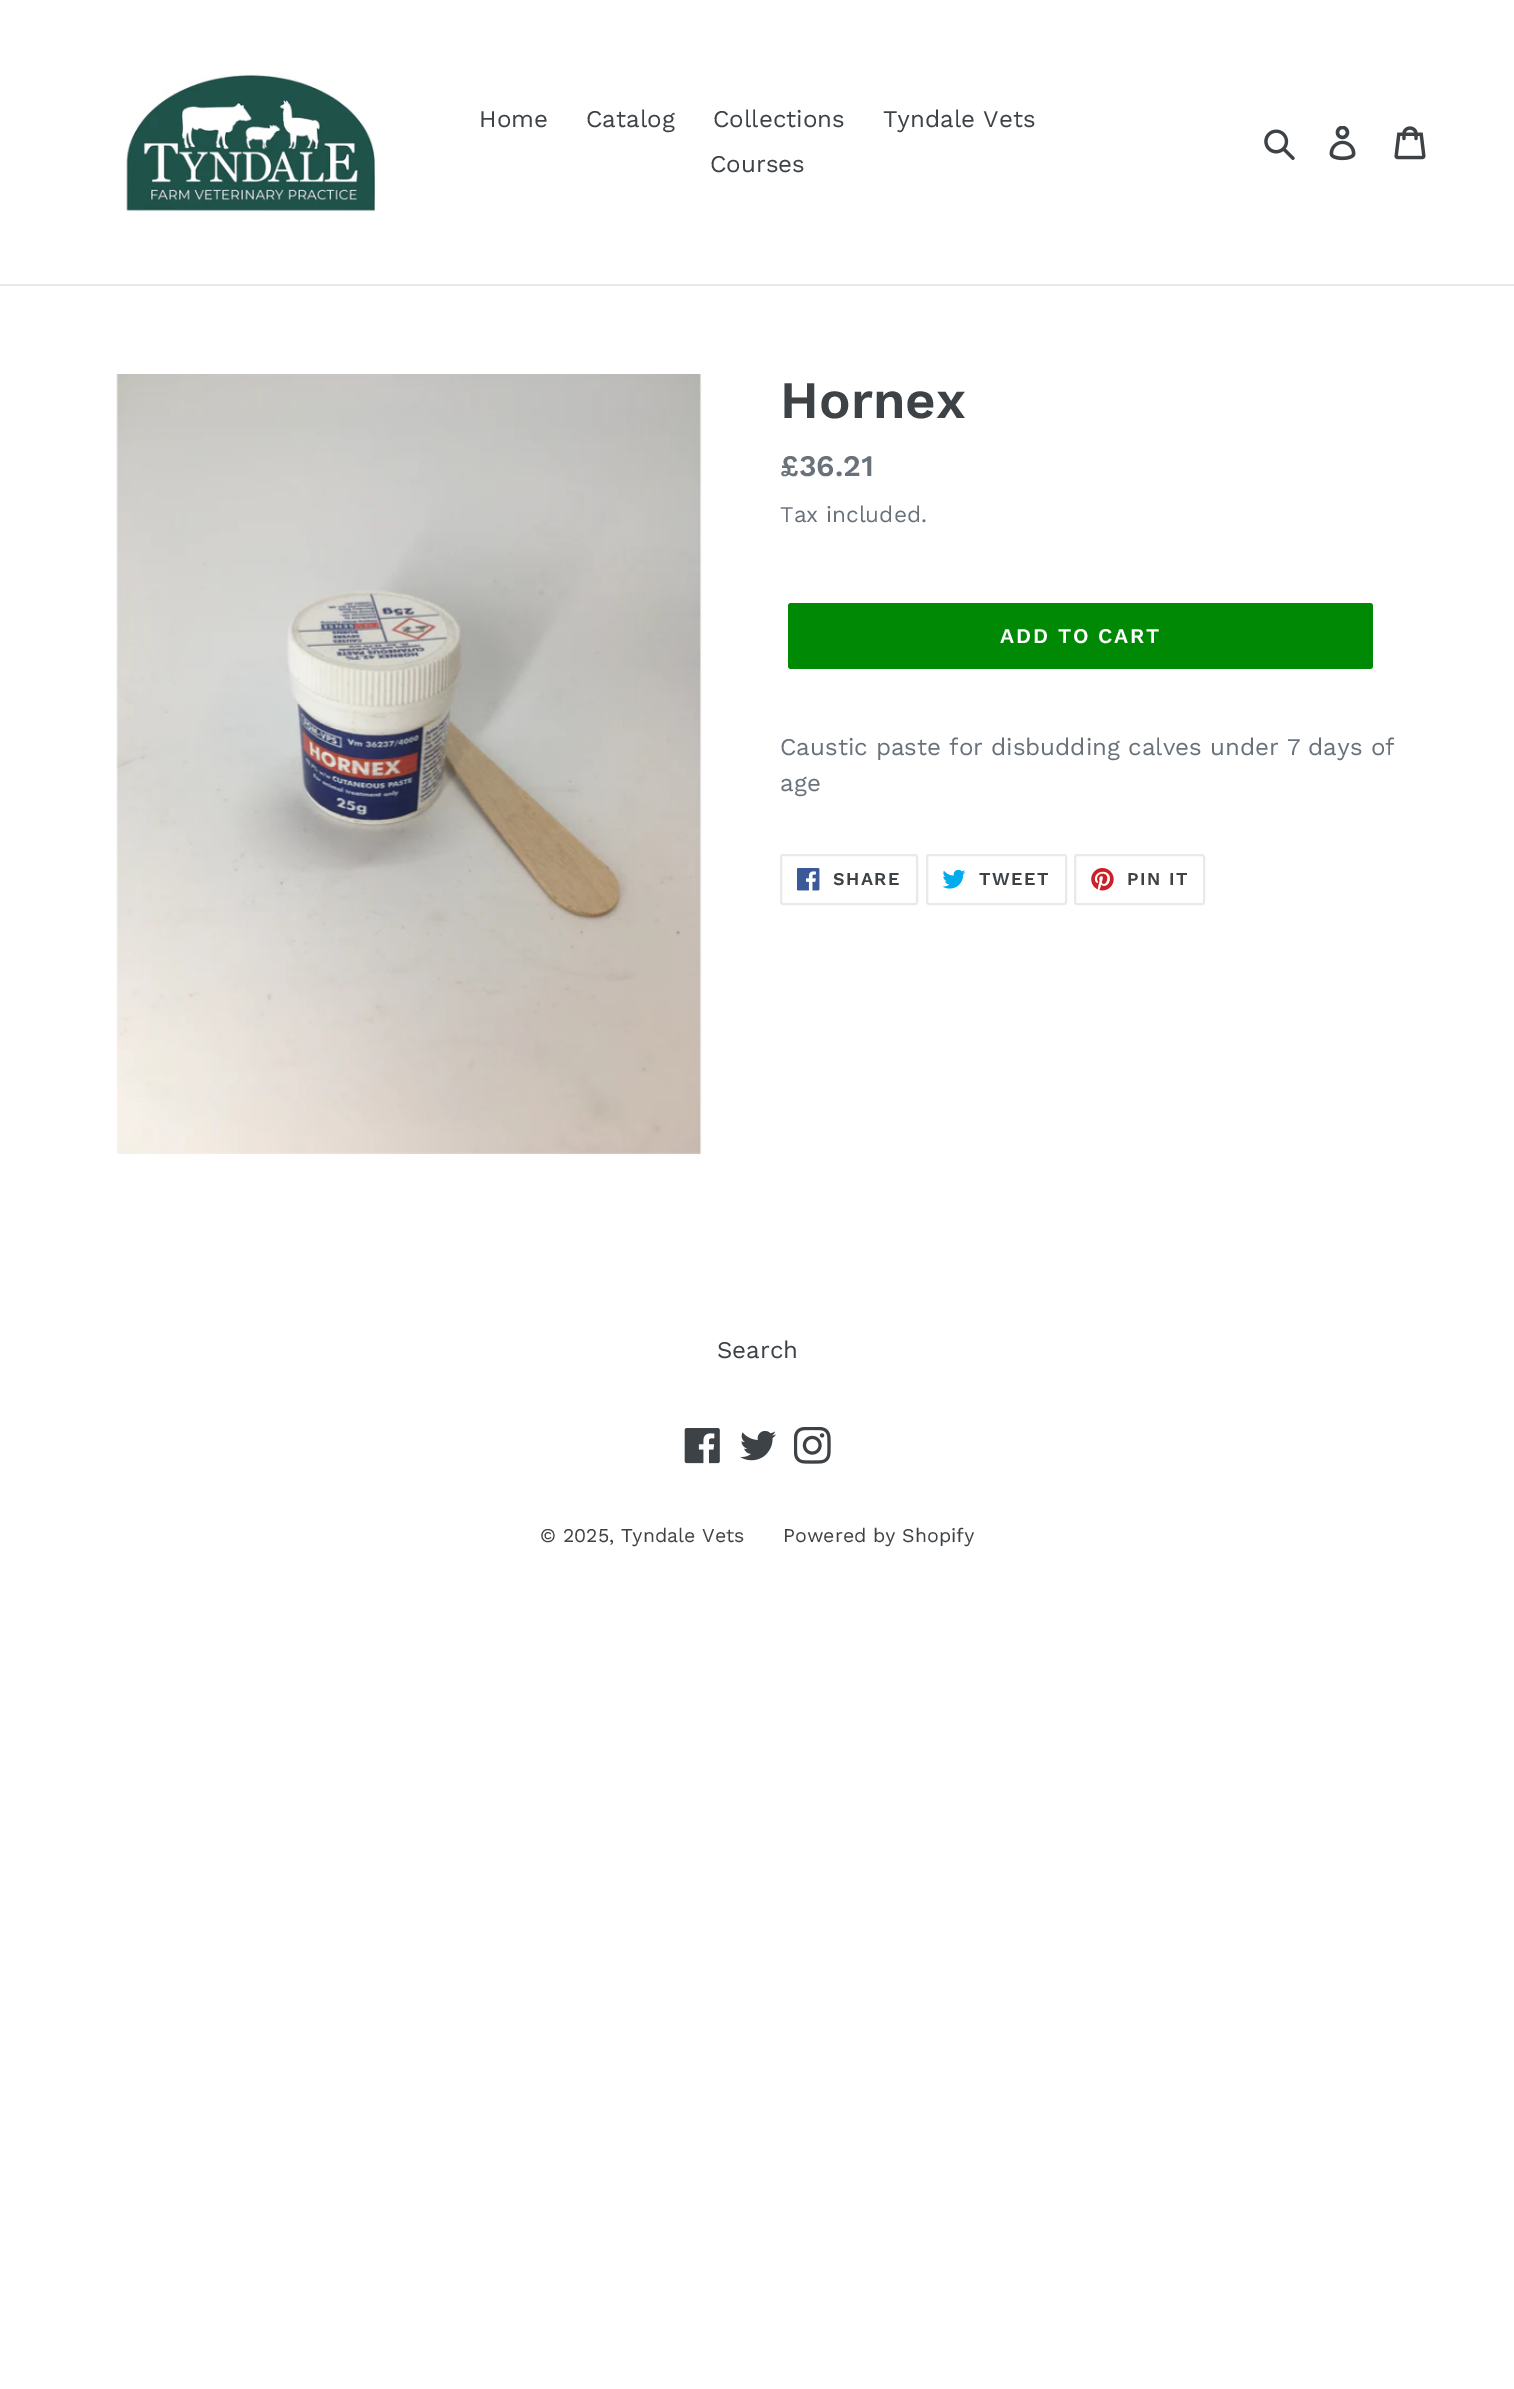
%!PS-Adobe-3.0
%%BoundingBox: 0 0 1514 2389
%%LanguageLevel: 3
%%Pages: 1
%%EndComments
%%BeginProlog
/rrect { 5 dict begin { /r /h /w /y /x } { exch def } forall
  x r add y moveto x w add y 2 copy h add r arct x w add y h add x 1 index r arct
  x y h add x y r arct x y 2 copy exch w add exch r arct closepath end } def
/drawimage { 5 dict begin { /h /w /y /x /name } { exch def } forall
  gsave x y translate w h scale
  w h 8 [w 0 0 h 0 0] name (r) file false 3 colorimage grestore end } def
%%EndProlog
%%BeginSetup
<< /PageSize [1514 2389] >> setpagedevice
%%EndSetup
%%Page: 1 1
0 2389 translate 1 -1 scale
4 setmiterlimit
1 setgray
0 0 1514 2389 rectfill
0.91 0.914 0.922 setrgbcolor
0 284 1514 2 rectfill
(images/1.raw) 126 74 250 138 drawimage
(images/2.raw) 1264 129 31 31 drawimage
(images/3.raw) 1329 126 27 35 drawimage
(images/4.raw) 1394 126 32 34 drawimage
(images/5.raw) 116 374 586 780 drawimage
0 0.537 0.016 setrgbcolor
788 603 585 66 3 rrect fill
0.91 0.914 0.922 setrgbcolor
2 setlinewidth
781 855 136 49 2 rrect stroke
(images/6.raw) 797 868 23 23 drawimage
927 855 139 49 2 rrect stroke
(images/7.raw) 942 869 24 20 drawimage
1075 855 129 49 2 rrect stroke
(images/8.raw) 1091 868 23 23 drawimage
(images/9.raw) 684 1428 36 36 drawimage
(images/10.raw) 740 1430 36 31 drawimage
(images/11.raw) 794 1427 37 37 drawimage
/WorkSans-Regular [24 0 0 -24 0 0] selectfont
0.239 0.259 0.275 setrgbcolor
479 127 moveto (Home) show
586 127 moveto (Catalog) show
713 127 moveto (Collections) show
883 127 moveto (Tyndale Vets) show
710 172 moveto (Courses) show
/WorkSans-SemiBold [52.5 0 0 -52.5 0 0] selectfont
780 418 moveto (Hornex) show
/WorkSans-SemiBold [30 0 0 -30 0 0] selectfont
0.412 0.447 0.482 setrgbcolor
780 476 moveto (£36.21) show
/WorkSans-Regular [22.5 0 0 -22.5 0 0] selectfont
780 522 moveto (Tax included.) show
/WorkSans-SemiBold [21 0 0 -21 0 0] selectfont
1 setgray
1000 643 moveto 1.75 0 (ADD TO CART) ashow
/WorkSans-Regular [24 0 0 -24 0 0] selectfont
0.412 0.447 0.482 setrgbcolor
780 755 moveto (Caustic paste for disbudding calves under 7 days of) show
780 791 moveto (age) show
/WorkSans-SemiBold [18 0 0 -18 0 0] selectfont
0.239 0.259 0.275 setrgbcolor
833 885 moveto 1.5 0 (SHARE) ashow
979 885 moveto 1.5 0 (TWEET) ashow
1127 885 moveto 1.5 0 (PIN IT) ashow
/WorkSans-Regular [24 0 0 -24 0 0] selectfont
717 1358 moveto (Search) show
/WorkSans-Regular [19.5 0 0 -19.5 0 0] selectfont
540 1542 moveto (© 2025, Tyndale Vets) show
783 1542 moveto (Powered by Shopify) show
showpage
%%EOF
